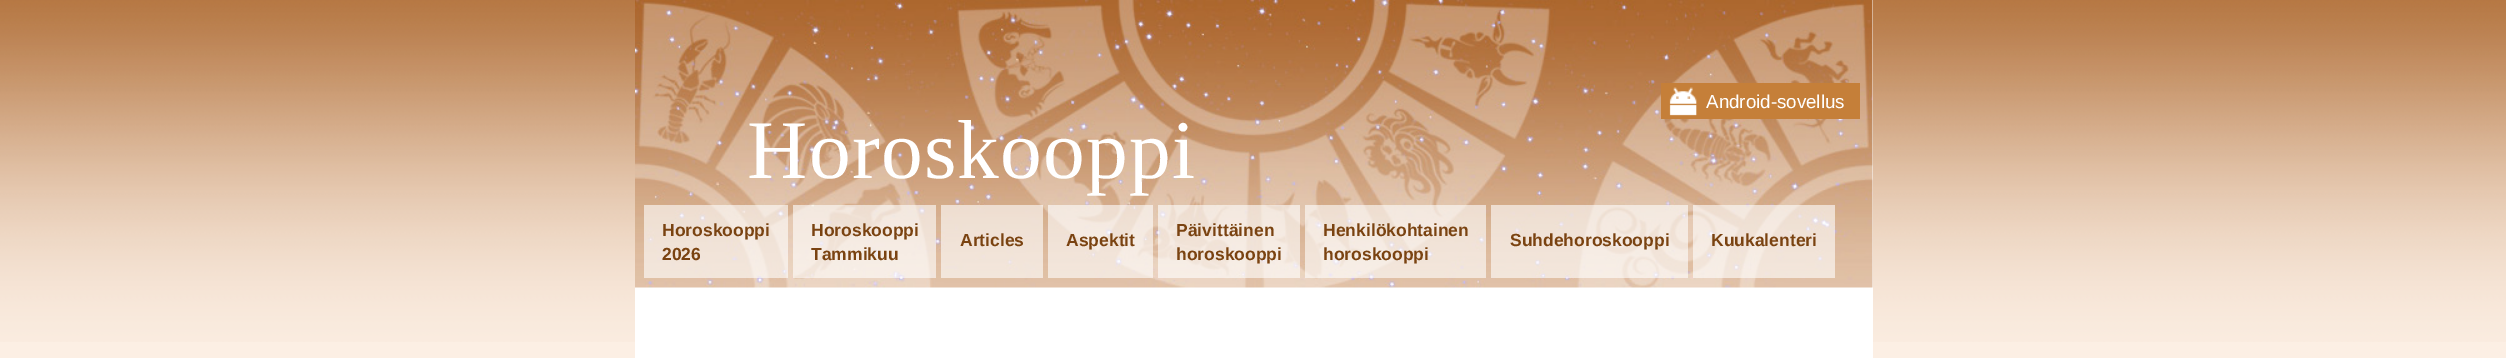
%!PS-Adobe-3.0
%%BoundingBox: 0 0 2506 358
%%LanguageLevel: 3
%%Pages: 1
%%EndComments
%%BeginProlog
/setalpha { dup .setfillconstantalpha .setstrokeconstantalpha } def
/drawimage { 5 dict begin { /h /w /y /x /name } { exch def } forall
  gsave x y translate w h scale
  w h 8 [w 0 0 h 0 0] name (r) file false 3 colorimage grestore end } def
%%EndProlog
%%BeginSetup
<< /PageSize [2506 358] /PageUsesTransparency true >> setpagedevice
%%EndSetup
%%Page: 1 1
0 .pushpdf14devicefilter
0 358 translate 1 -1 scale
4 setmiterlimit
0.988 0.937 0.894 setrgbcolor
0 0 2506 358 rectfill
(images/1.raw) 0 0 2506 342 drawimage
1 setgray
635 0 1238 358 rectfill
(images/2.raw) 635 0 1238 288 drawimage
0.773 0.498 0.224 setrgbcolor
1661 83 199 36 rectfill
(images/3.raw) 1669 87 28 29 drawimage
0.6 setalpha
1 setgray
644 205 144 73 rectfill
793 205 143 73 rectfill
941 205 102 73 rectfill
1048 205 105 73 rectfill
1158 205 142 73 rectfill
1305 205 181 73 rectfill
1491 205 197 73 rectfill
1693 205 142 73 rectfill
/LiberationSans-Regular [18.75 0 0 -18.75 0 0] selectfont
1 setalpha
1706 108 moveto (Android-sovellus) show
/LiberationSerif-Regular [83.5 0 0 -83.5 0 0] selectfont
747 178 moveto 1.25 0 (Horoskooppi) ashow
/LiberationSans-Bold [17.5 0 0 -17.5 0 0] selectfont
0.478 0.263 0.067 setrgbcolor
662 236 moveto (Horoskooppi) show
662 260 moveto (2026) show
811 236 moveto (Horoskooppi) show
811 260 moveto (Tammikuu) show
960 246 moveto (Articles) show
1066 246 moveto (Aspektit) show
1176 236 moveto (Päivittäinen) show
1176 260 moveto (horoskooppi) show
1323 236 moveto (Henkilökohtainen) show
1323 260 moveto (horoskooppi) show
1510 246 moveto (Suhdehoroskooppi) show
1711 246 moveto (Kuukalenteri) show
.poppdf14devicefilter showpage
%%EOF
